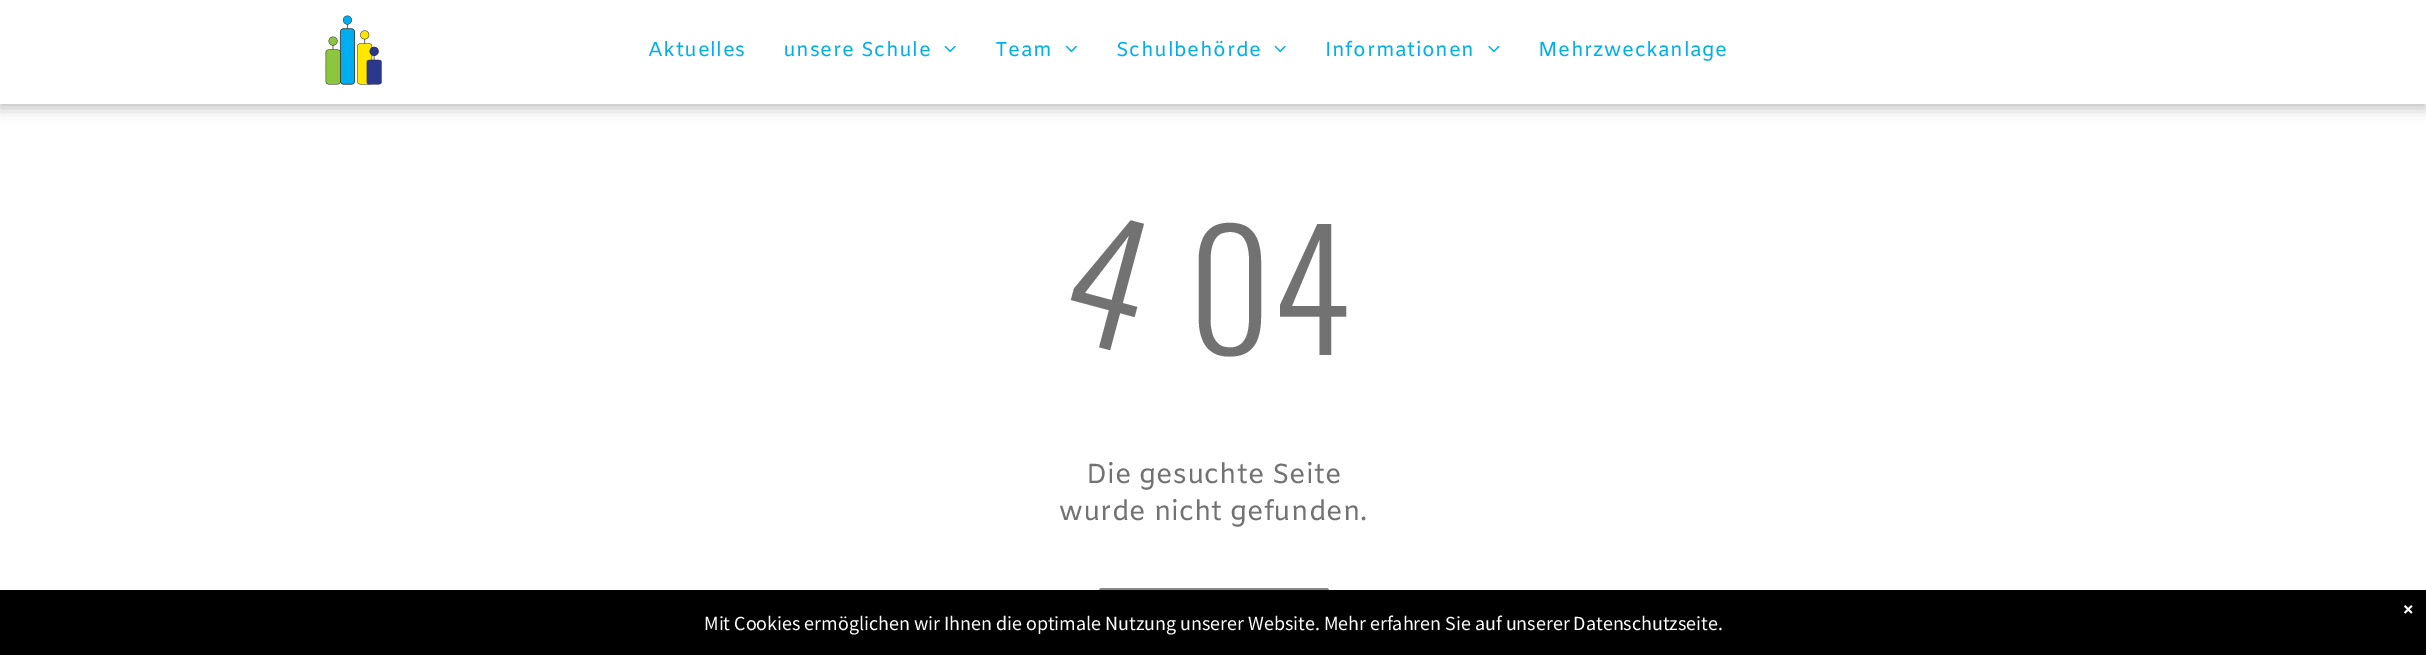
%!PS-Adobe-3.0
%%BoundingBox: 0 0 2426 655
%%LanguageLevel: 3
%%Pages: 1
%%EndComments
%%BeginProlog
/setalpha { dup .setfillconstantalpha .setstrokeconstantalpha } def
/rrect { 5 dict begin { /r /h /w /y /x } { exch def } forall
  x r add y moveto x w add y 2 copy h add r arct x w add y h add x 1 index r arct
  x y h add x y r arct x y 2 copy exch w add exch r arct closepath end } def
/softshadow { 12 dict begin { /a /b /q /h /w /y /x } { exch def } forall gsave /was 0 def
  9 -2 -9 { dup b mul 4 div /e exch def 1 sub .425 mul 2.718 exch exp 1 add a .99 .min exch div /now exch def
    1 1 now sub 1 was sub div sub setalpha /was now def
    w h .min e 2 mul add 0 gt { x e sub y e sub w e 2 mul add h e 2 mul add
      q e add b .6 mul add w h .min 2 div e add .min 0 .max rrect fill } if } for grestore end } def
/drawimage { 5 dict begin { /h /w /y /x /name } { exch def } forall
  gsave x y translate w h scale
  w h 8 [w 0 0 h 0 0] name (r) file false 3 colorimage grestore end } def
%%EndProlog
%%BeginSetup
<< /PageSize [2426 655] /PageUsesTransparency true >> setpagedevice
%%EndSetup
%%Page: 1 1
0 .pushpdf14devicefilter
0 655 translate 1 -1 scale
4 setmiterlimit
1 setgray
0 0 2426 655 rectfill
0 setgray
0 4 2426 104 0 7 0.25 softshadow
1 setgray
0 0 2426 104 rectfill
(images/1.raw) 325 15 57 70 drawimage
(images/2.raw) 944 45 12 8 drawimage
(images/3.raw) 1065 45 12 8 drawimage
(images/2.raw) 1274 45 12 8 drawimage
(images/4.raw) 1488 45 12 8 drawimage
0.537 setgray
1099 588 230 46 2.5 rrect fill
0 setgray
0 590 2426 65 rectfill
/Amiko-Regular [20 0 0 -20 0 0] selectfont
0 0.682 0.937 setrgbcolor
648 56 moveto 0.6 0 (Aktuelles) ashow
783 56 moveto 0.6 0 (unsere Schule) ashow
995 56 moveto 0.6 0 (Team) ashow
1116 56 moveto 0.6 0 (Schulbehörde) ashow
1325 56 moveto 0.6 0 (Informationen) ashow
1538 56 moveto 0.6 0 (Mehrzweckanlage) ashow
/Oswald-Light [162 0 0 -162 0 0] selectfont
0.447 setgray
gsave 1053 335 translate 15 rotate 0 0 moveto (4) show grestore
1188 355 moveto (04) show
/Amiko-Regular [27.5 0 0 -27.5 0 0] selectfont
1086 483 moveto (Die gesuchte Seite) show
1059 520 moveto (wurde nicht gefunden.) show
/SourceSansPro-Bold [20 0 0 -20 0 0] selectfont
1 setgray
2403 616 moveto (×) show
/SourceSansPro-Regular [20 0 0 -20 0 0] selectfont
704 630 moveto (Mit Cookies ermöglichen wir Ihnen die optimale Nutzung unserer Website. Mehr erfahren Sie auf unserer Datenschutzseite.) show
.poppdf14devicefilter showpage
%%EOF
